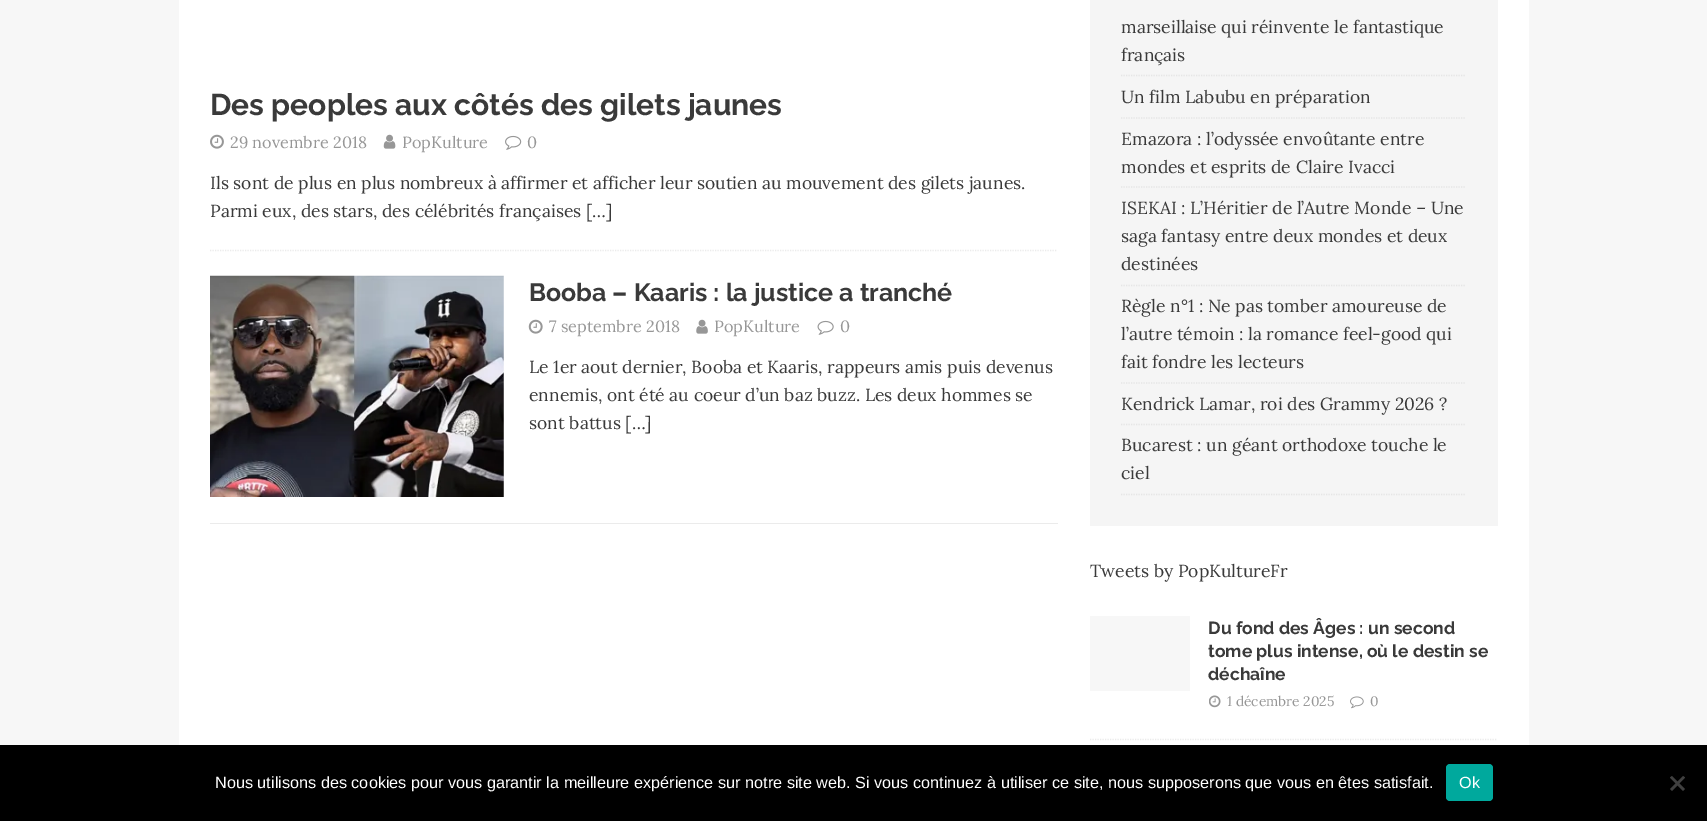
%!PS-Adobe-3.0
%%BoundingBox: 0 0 1707 821
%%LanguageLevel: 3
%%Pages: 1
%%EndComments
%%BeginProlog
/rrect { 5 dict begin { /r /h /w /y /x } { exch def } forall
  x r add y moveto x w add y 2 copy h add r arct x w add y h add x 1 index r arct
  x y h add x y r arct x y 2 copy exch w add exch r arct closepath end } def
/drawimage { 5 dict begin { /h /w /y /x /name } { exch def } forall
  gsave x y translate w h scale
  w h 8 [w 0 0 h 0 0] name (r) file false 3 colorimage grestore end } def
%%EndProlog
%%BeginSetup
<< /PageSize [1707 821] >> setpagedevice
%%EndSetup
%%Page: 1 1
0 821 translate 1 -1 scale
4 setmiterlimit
0.969 setgray
0 0 1707 821 rectfill
1 setgray
179 0 1350 745 rectfill
0.922 setgray
1.2 setlinewidth
[1.25 1.25] 0 setdash
newpath 210 250.5 moveto 1057.5 250.5 lineto stroke
(images/1.raw) 210 134 14 15 drawimage
(images/2.raw) 383 134 13 15 drawimage
(images/3.raw) 505 135 17 15 drawimage
210 523 848 1 rectfill
(images/4.raw) 210 275 294 222 drawimage
(images/5.raw) 528 319 15 15 drawimage
(images/6.raw) 696 319 12 15 drawimage
(images/7.raw) 817 320 17 15 drawimage
0.961 setgray
1090 0 408 526 rectfill
0.898 setgray
newpath 1121 75.5 moveto 1466 75.5 lineto stroke
newpath 1121 118 moveto 1466 118 lineto stroke
newpath 1121 187 moveto 1466 187 lineto stroke
newpath 1121 285.5 moveto 1466 285.5 lineto stroke
newpath 1121 383 moveto 1466 383 lineto stroke
newpath 1121 424.5 moveto 1466 424.5 lineto stroke
newpath 1121 494.5 moveto 1466 494.5 lineto stroke
0.922 setgray
newpath 1090 739.5 moveto 1497.5 739.5 lineto stroke
0.969 setgray
1090 616 100 75 rectfill
(images/8.raw) 1209 695 12 13 drawimage
(images/9.raw) 1350 696 14 13 drawimage
0 setgray
0 745 1707 76 rectfill
0 0.663 0.616 setrgbcolor
1446 764 47 37 4 rrect fill
0.251 setgray
newpath 1683 776 moveto 1685 777.5 lineto 1672 791 lineto 1670 789 lineto closepath fill
newpath 1670 777.5 moveto 1672 776 lineto 1685 789 lineto 1683 791 lineto closepath fill
/Raleway-Bold [30 0 0 -30 0 0] selectfont
0.227 setgray
210 115 moveto (Des peoples aux côtés des gilets jaunes) show
/Lora-Regular [16.25 0 0 -16.25 0 0] selectfont
0.592 setgray
230 148 moveto (29 novembre 2018) show
402 148 moveto (PopKulture) show
527 148 moveto (0) show
/Lora-Regular [17.5 0 0 -17.5 0 0] selectfont
0.227 setgray
210 189 moveto (Ils sont de plus en plus nombreux à affirmer et afficher leur soutien au mouvement des gilets jaunes.) show
210 217 moveto (Parmi eux, des stars, des célébrités françaises […]) show
/Raleway-Bold [25 0 0 -25 0 0] selectfont
529 301 moveto (Booba – Kaaris : la justice a tranché) show
/Lora-Regular [16.25 0 0 -16.25 0 0] selectfont
0.592 setgray
549 332 moveto (7 septembre 2018) show
714 332 moveto (PopKulture) show
840 332 moveto (0) show
/Lora-Regular [17.5 0 0 -17.5 0 0] selectfont
0.227 setgray
529 373 moveto (Le 1er aout dernier, Booba et Kaaris, rappeurs amis puis devenus) show
529 401 moveto (ennemis, ont été au coeur d’un baz buzz. Les deux hommes se) show
529 429 moveto (sont battus […]) show
1121 33 moveto (marseillaise qui réinvente le fantastique) show
1121 61 moveto (français) show
1121 103 moveto (Un film Labubu en préparation) show
1121 145 moveto (Emazora : l’odyssée envoûtante entre) show
1121 173 moveto (mondes et esprits de Claire Ivacci) show
1121 214 moveto (ISEKAI : L’Héritier de l’Autre Monde – Une) show
1121 242 moveto (saga fantasy entre deux mondes et deux) show
1121 270 moveto (destinées) show
1121 312 moveto (Règle n°1 : Ne pas tomber amoureuse de) show
1121 340 moveto (l’autre témoin : la romance feel-good qui) show
1121 368 moveto (fait fondre les lecteurs) show
1121 410 moveto (Kendrick Lamar, roi des Grammy 2026 ?) show
1121 451 moveto (Bucarest : un géant orthodoxe touche le) show
1121 479 moveto (ciel) show
1090 577 moveto (Tweets by PopKultureFr) show
/Raleway-Bold [17.5 0 0 -17.5 0 0] selectfont
1208 634 moveto (Du fond des Âges : un second) show
1208 657 moveto (tome plus intense, où le destin se) show
1208 680 moveto (déchaîne) show
/Lora-Regular [13.75 0 0 -13.75 0 0] selectfont
0.592 setgray
1227 706 moveto (1 décembre 2025) show
1370 706 moveto (0) show
/LiberationSans-Regular [16.25 0 0 -16.25 0 0] selectfont
1 setgray
215 788 moveto (Nous utilisons des cookies pour vous garantir la meilleure expérience sur notre site web. Si vous continuez à utiliser ce site, nous supposerons que vous en êtes satisfait.) show
1459 788 moveto (Ok) show
showpage
%%EOF
